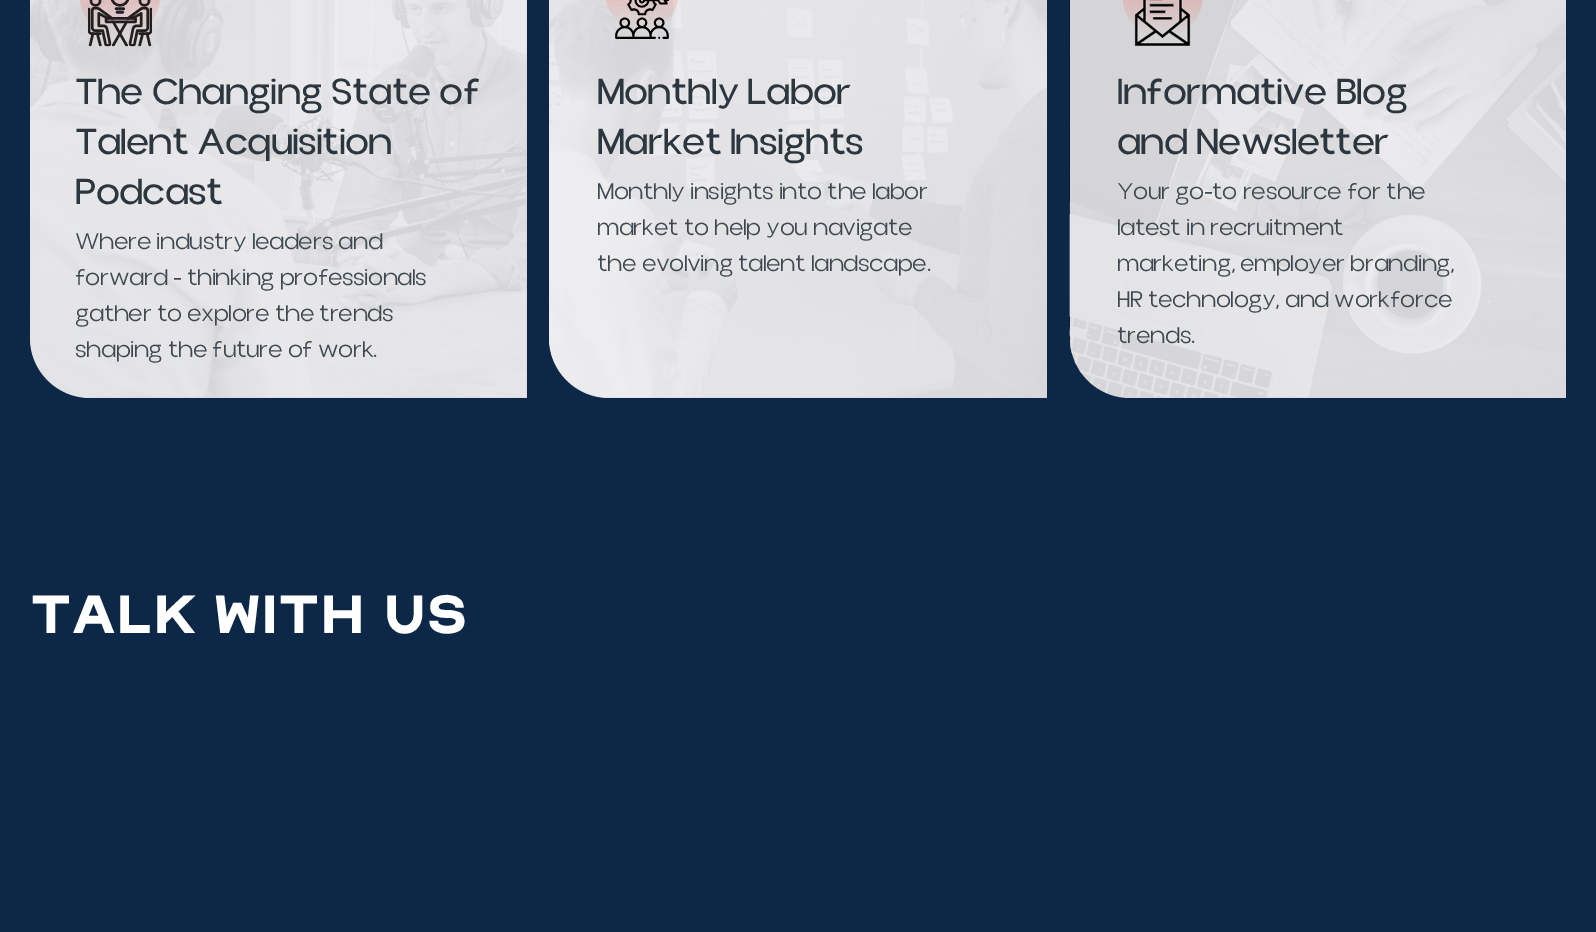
%!PS-Adobe-3.0
%%BoundingBox: 0 0 1596 932
%%LanguageLevel: 3
%%Pages: 1
%%EndComments
%%BeginProlog
/setalpha { dup .setfillconstantalpha .setstrokeconstantalpha } def
/drawimage { 5 dict begin { /h /w /y /x /name } { exch def } forall
  gsave x y translate w h scale
  w h 8 [w 0 0 h 0 0] name (r) file false 3 colorimage grestore end } def
%%EndProlog
%%BeginSetup
<< /PageSize [1596 932] /PageUsesTransparency true >> setpagedevice
%%EndSetup
%%Page: 1 1
0 .pushpdf14devicefilter
0 932 translate 1 -1 scale
4 setmiterlimit
0.051 0.157 0.278 setrgbcolor
0 0 1596 932 rectfill
(images/1.raw) 30 0 497 398 drawimage
0.9 setalpha
0.922 0.918 0.929 setrgbcolor
newpath 90 -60 moveto 467 -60 lineto 500 -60 527 -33 527 0 curveto 527 398 lineto 90 398 lineto 57 398 30 371 30 338 curveto 30 0 lineto 30 -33 57 -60 90 -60 curveto closepath fill
1 setalpha
(images/2.raw) 80 0 80 47 drawimage
(images/3.raw) 549 0 498 398 drawimage
0.9 setalpha
newpath 609 -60 moveto 987 -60 lineto 1020 -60 1047 -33 1047 0 curveto 1047 398 lineto 609 398 lineto 576 398 549 371 549 338 curveto 549 0 lineto 549 -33 576 -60 609 -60 curveto closepath fill
1 setalpha
(images/4.raw) 605 0 74 39 drawimage
(images/5.raw) 1069 0 497 398 drawimage
0.9 setalpha
newpath 1130 -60 moveto 1506 -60 lineto 1539 -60 1566 -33 1566 0 curveto 1566 398 lineto 1130 398 lineto 1097 398 1070 371 1070 338 curveto 1070 0 lineto 1070 -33 1097 -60 1130 -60 curveto closepath fill
1 setalpha
(images/6.raw) 1122 0 81 46 drawimage
/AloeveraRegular-Regular [38.25 0 0 -38.25 0 0] selectfont
0.173 0.212 0.247 setrgbcolor
75 104 moveto -0.75 0 (The Changing State of) ashow
75 154 moveto -0.75 0 (Talent Acquisition) ashow
75 204 moveto -0.75 0 (Podcast) ashow
/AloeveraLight-Light [24 0 0 -24 0 0] selectfont
0.247 0.282 0.314 setrgbcolor
75 249 moveto -0.5 0 (Where industry leaders and) ashow
75 285 moveto -0.5 0 (forward - thinking professionals) ashow
75 321 moveto -0.5 0 (gather to explore the trends) ashow
75 357 moveto -0.5 0 (shaping the future of work.) ashow
/AloeveraRegular-Regular [38.25 0 0 -38.25 0 0] selectfont
0.173 0.212 0.247 setrgbcolor
597 104 moveto -0.75 0 (Monthly Labor) ashow
597 154 moveto -0.75 0 (Market Insights) ashow
/AloeveraLight-Light [24 0 0 -24 0 0] selectfont
0.247 0.282 0.314 setrgbcolor
597 199 moveto -0.5 0 (Monthly insights into the labor) ashow
597 235 moveto -0.5 0 (market to help you navigate) ashow
597 271 moveto -0.5 0 (the evolving talent landscape.) ashow
/AloeveraRegular-Regular [38.25 0 0 -38.25 0 0] selectfont
0.173 0.212 0.247 setrgbcolor
1117 104 moveto -0.75 0 (Informative Blog) ashow
1117 154 moveto -0.75 0 (and Newsletter) ashow
/AloeveraLight-Light [24 0 0 -24 0 0] selectfont
0.247 0.282 0.314 setrgbcolor
1117 199 moveto -0.5 0 (Your go-to resource for the) ashow
1117 235 moveto -0.5 0 (latest in recruitment) ashow
1117 271 moveto -0.5 0 (marketing, employer branding,) ashow
1117 307 moveto -0.5 0 (HR technology, and workforce) ashow
1117 343 moveto -0.5 0 (trends.) ashow
/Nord-Bold [57 0 0 -57 0 0] selectfont
1 setgray
30 633 moveto -1.1 0 (Talk With Us) ashow
.poppdf14devicefilter showpage
%%EOF
